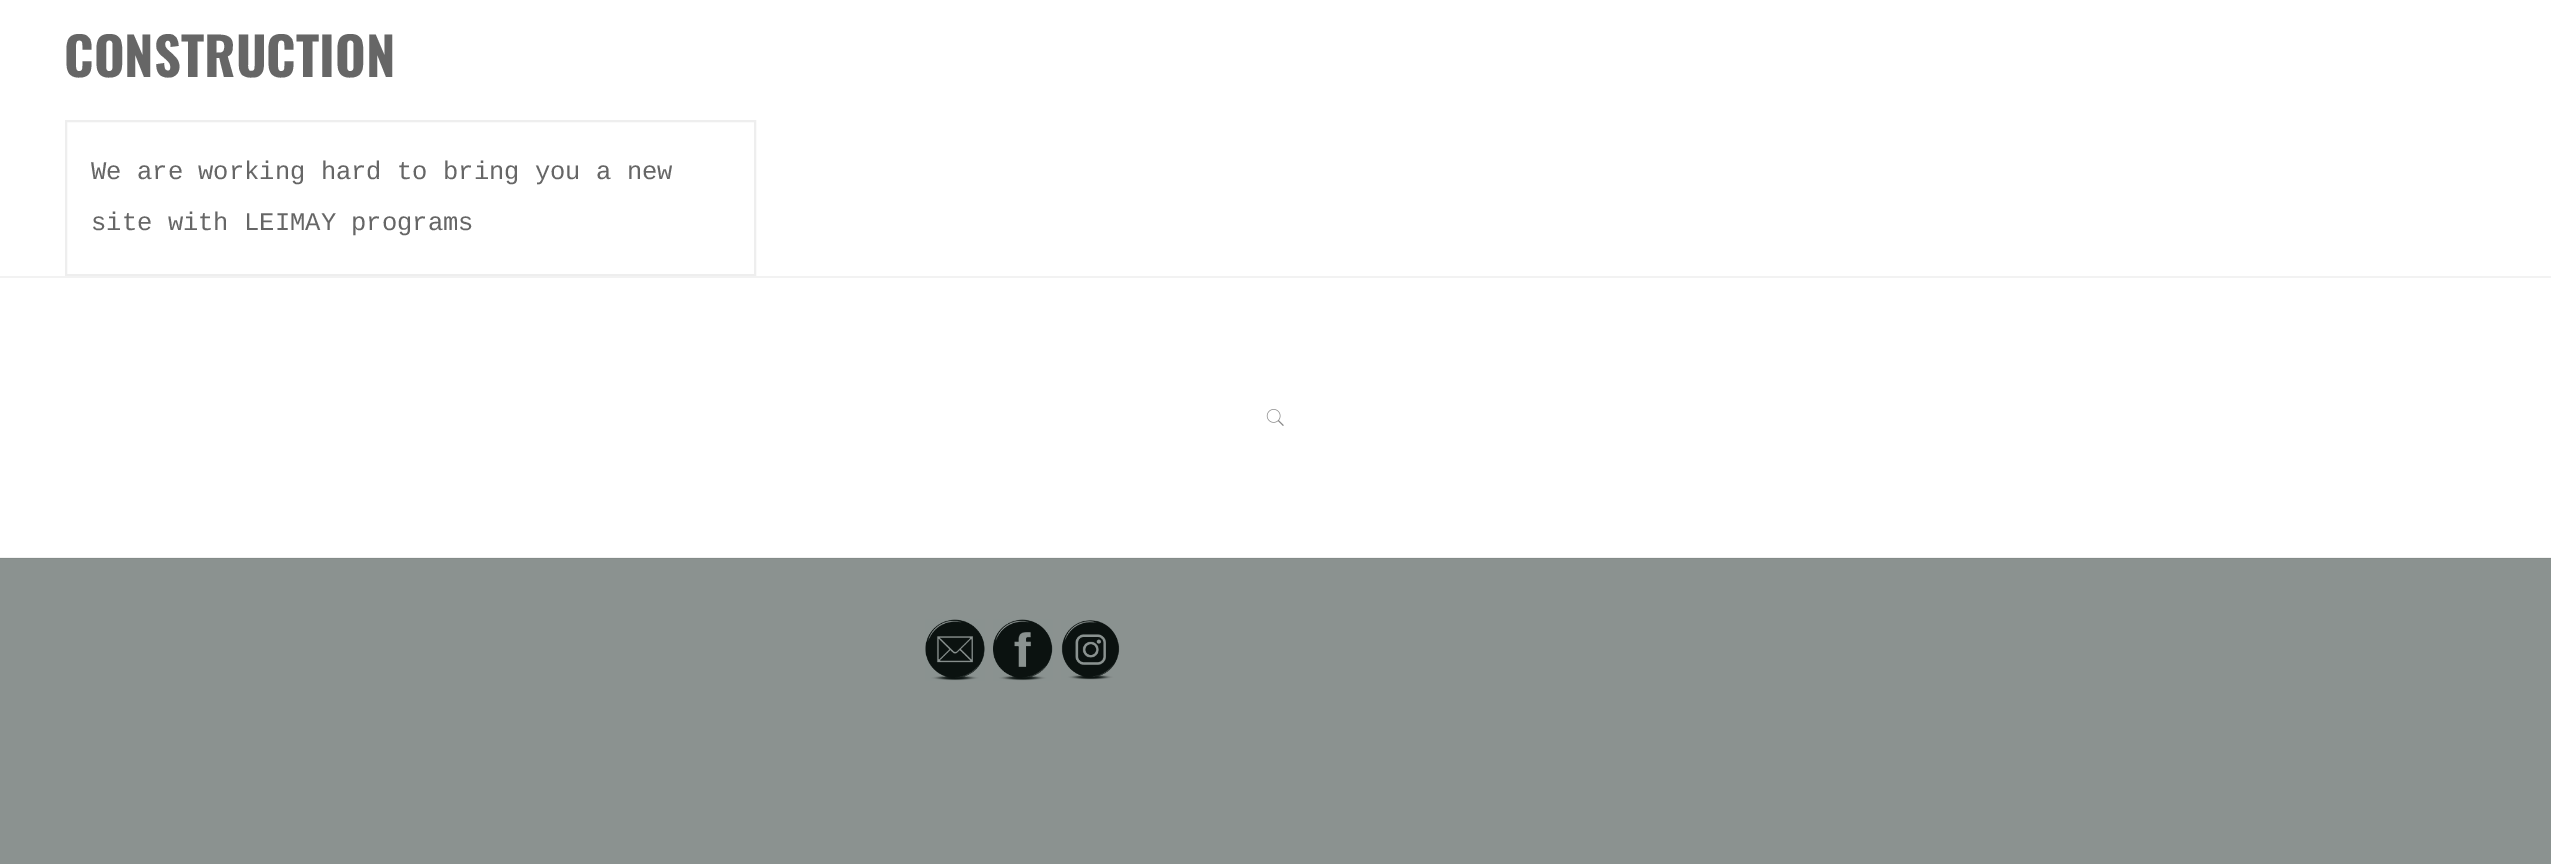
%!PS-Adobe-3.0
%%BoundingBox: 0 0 2551 864
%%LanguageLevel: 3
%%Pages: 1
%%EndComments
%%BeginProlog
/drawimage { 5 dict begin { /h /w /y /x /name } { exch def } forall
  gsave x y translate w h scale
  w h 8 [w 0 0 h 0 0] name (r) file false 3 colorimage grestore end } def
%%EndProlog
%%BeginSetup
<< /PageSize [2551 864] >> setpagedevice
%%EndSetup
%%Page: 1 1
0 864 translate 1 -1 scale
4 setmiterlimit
1 setgray
0 0 2551 864 rectfill
0.949 setgray
0 557 2551 1 rectfill
0.545 0.573 0.565 setrgbcolor
0 559 2551 305 rectfill
0.518 0.545 0.537 setrgbcolor
0 558 2551 1 rectfill
0.933 setgray
2 setlinewidth
66 121 689 154 rectstroke
0.949 setgray
0 276 2551 2 rectfill
(images/1.raw) 1266 409 18 17 drawimage
(images/2.raw) 925 619 60 62 drawimage
(images/3.raw) 993 619 60 62 drawimage
(images/4.raw) 1061 620 59 60 drawimage
/Oswald-Bold [52.5 0 0 -52.5 0 0] selectfont
0.4 setgray
64 77 moveto (CONSTRUCTION) show
/LiberationMono-Regular [25.5 0 0 -25.5 0 0] selectfont
91 179 moveto (We are working hard to bring you a new) show
91 230 moveto (site with LEIMAY programs) show
showpage
%%EOF
